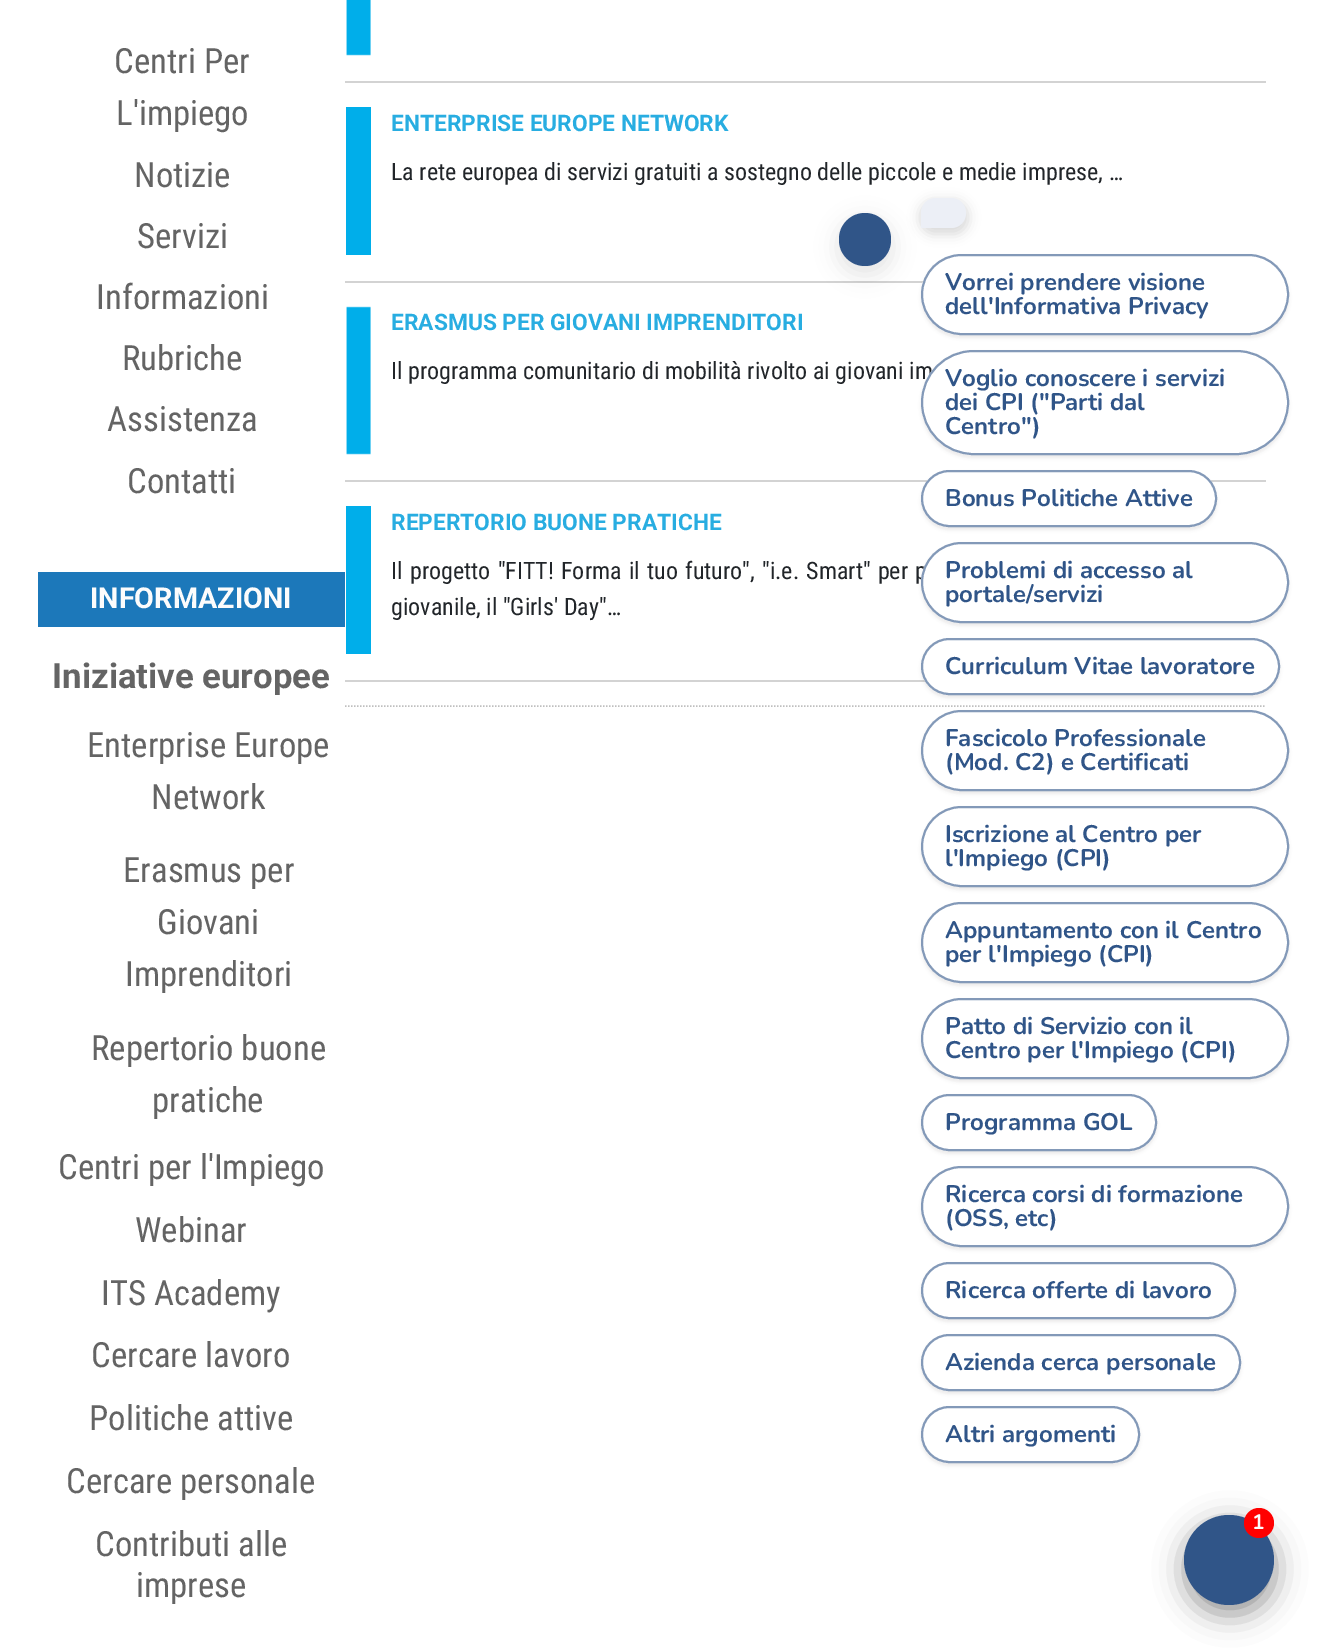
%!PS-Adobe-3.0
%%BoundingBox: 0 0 1318 1650
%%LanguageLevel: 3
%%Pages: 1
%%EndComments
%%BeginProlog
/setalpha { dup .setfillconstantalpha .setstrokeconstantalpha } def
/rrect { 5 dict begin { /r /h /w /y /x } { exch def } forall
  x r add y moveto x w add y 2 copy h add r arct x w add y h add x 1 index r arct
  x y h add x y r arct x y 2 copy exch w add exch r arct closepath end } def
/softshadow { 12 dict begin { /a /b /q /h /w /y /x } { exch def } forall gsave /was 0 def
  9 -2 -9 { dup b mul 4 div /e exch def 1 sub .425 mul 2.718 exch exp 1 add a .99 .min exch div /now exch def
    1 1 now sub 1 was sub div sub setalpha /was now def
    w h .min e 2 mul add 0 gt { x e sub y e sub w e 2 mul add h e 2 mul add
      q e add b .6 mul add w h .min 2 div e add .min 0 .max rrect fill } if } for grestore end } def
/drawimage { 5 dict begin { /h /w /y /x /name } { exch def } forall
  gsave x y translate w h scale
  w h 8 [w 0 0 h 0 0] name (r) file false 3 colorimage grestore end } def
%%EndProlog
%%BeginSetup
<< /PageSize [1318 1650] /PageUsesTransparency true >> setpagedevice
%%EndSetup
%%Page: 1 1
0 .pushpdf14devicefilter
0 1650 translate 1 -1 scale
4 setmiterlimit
1 setgray
0 0 1318 1650 rectfill
0.11 0.471 0.729 setrgbcolor
38 572 307 55 rectfill
0.827 setgray
345 81 921 2 rectfill
(images/1.raw) 346 0 25 56 drawimage
345 281 579 2 rectfill
0 0.682 0.918 setrgbcolor
346 107 25 148 rectfill
0.827 setgray
345 480 921 2 rectfill
(images/2.raw) 346 306 25 149 drawimage
345 680 581 2 rectfill
0 0.682 0.918 setrgbcolor
346 506 25 148 rectfill
0.749 setgray
1.5 setlinewidth
[1.5 1.5] 0 setdash
newpath 345 706 moveto 1266 706 lineto stroke
0 setgray
837 219 56 56 28 10.5 0.1 softshadow
0.188 0.333 0.533 setrgbcolor
839 213 52 53 26 rrect fill
0 setgray
920 201 48 33 16.5 6 0.15 softshadow
0.925 0.937 0.965 setrgbcolor
newpath 936 198 moveto 951 198 lineto 959.5 198 966 204.5 966 213 curveto 966 221.5 959.5 228 951 228 curveto 921 228 lineto 921 213 lineto 921 204.5 927.5 198 936 198 curveto closepath fill
0.286 0.263 0.263 setrgbcolor
921 257 368 81 40.5 1.5 0.1 softshadow
1 setgray
921 254 368 81 40.5 rrect fill
0.6 setalpha
0.188 0.333 0.533 setrgbcolor
2 setlinewidth
[] 0 setdash
922 255 366 79 39.5 rrect stroke
1 setalpha
0.286 0.263 0.263 setrgbcolor
921 353 368 105 52.5 1.5 0.1 softshadow
921 473 296 57 28.5 1.5 0.1 softshadow
1 setgray
921 470 296 57 28.5 rrect fill
0.6 setalpha
0.188 0.333 0.533 setrgbcolor
922 471 294 55 27.5 rrect stroke
1 setalpha
0.286 0.263 0.263 setrgbcolor
921 545 368 81 40.5 1.5 0.1 softshadow
921 641 359 57 28.5 1.5 0.1 softshadow
1 setgray
921 638 359 57 28.5 rrect fill
0.6 setalpha
0.188 0.333 0.533 setrgbcolor
922 639 357 55 27.5 rrect stroke
1 setalpha
0.286 0.263 0.263 setrgbcolor
921 713 368 81 40.5 1.5 0.1 softshadow
1 setgray
921 710 368 81 40.5 rrect fill
0.6 setalpha
0.188 0.333 0.533 setrgbcolor
922 711 366 79 39.5 rrect stroke
1 setalpha
0.286 0.263 0.263 setrgbcolor
921 809 368 81 40.5 1.5 0.1 softshadow
1 setgray
921 806 368 81 40.5 rrect fill
0.6 setalpha
0.188 0.333 0.533 setrgbcolor
922 807 366 79 39.5 rrect stroke
1 setalpha
0.286 0.263 0.263 setrgbcolor
921 905 368 81 40.5 1.5 0.1 softshadow
1 setgray
921 902 368 81 40.5 rrect fill
0.6 setalpha
0.188 0.333 0.533 setrgbcolor
922 903 366 79 39.5 rrect stroke
1 setalpha
0.286 0.263 0.263 setrgbcolor
921 1001 368 81 40.5 1.5 0.1 softshadow
1 setgray
921 998 368 81 40.5 rrect fill
0.6 setalpha
0.188 0.333 0.533 setrgbcolor
922 999 366 79 39.5 rrect stroke
1 setalpha
0.286 0.263 0.263 setrgbcolor
921 1097 236 57 28.5 1.5 0.1 softshadow
1 setgray
921 1094 236 57 28.5 rrect fill
0.6 setalpha
0.188 0.333 0.533 setrgbcolor
922 1095 234 55 27.5 rrect stroke
1 setalpha
0.286 0.263 0.263 setrgbcolor
921 1169 368 81 40.5 1.5 0.1 softshadow
1 setgray
921 1166 368 81 40.5 rrect fill
0.6 setalpha
0.188 0.333 0.533 setrgbcolor
922 1167 366 79 39.5 rrect stroke
1 setalpha
0.286 0.263 0.263 setrgbcolor
921 1265 315 57 28.5 1.5 0.1 softshadow
1 setgray
921 1262 315 57 28.5 rrect fill
0.6 setalpha
0.188 0.333 0.533 setrgbcolor
922 1263 313 55 27.5 rrect stroke
1 setalpha
0.286 0.263 0.263 setrgbcolor
921 1337 320 57 28.5 1.5 0.1 softshadow
1 setgray
921 1334 320 57 28.5 rrect fill
0.6 setalpha
0.188 0.333 0.533 setrgbcolor
922 1335 318 55 27.5 rrect stroke
1 setalpha
0.286 0.263 0.263 setrgbcolor
921 1409 219 57 28.5 1.5 0.1 softshadow
1 setgray
921 1406 219 57 28.5 rrect fill
0.6 setalpha
0.188 0.333 0.533 setrgbcolor
922 1407 217 55 27.5 rrect stroke
1 setalpha
0 setgray
1185 1524 90 90 45 15 0.42 softshadow
0.188 0.333 0.533 setrgbcolor
newpath 1229 1560 45 0 360 arc closepath fill
1 0 0 setrgbcolor
newpath 1259 1523 15 0 360 arc closepath fill
/RobotoCondensed-Regular [34.75 0 0 -34.75 0 0] selectfont
0.392 setgray
114 73 moveto (Centri Per) show
116 125 moveto (L'impiego) show
134 187 moveto (Notizie) show
137 248 moveto (Servizi) show
96 309 moveto (Informazioni) show
122 370 moveto (Rubriche) show
107 431 moveto (Assistenza) show
127 493 moveto (Contatti) show
/Roboto-Bold [28.75 0 0 -28.75 0 0] selectfont
0.988 setgray
90 608 moveto (INFORMAZIONI) show
/Roboto-Bold [34.75 0 0 -34.75 0 0] selectfont
0.392 setgray
52 688 moveto (Iniziative europee) show
/RobotoCondensed-Regular [34.75 0 0 -34.75 0 0] selectfont
87 757 moveto (Enterprise Europe) show
151 809 moveto (Network) show
123 882 moveto (Erasmus per) show
157 934 moveto (Giovani) show
125 986 moveto (Imprenditori) show
91 1060 moveto (Repertorio buone) show
152 1112 moveto (pratiche) show
58 1179 moveto (Centri per l'Impiego) show
135 1242 moveto (Webinar) show
101 1305 moveto (ITS Academy) show
91 1367 moveto (Cercare lavoro) show
89 1430 moveto (Politiche attive) show
66 1493 moveto (Cercare personale) show
95 1556 moveto (Contributi alle) show
136 1597 moveto (imprese) show
/Roboto-Bold [22.75 0 0 -22.75 0 0] selectfont
0.157 0.678 0.882 setrgbcolor
391 131 moveto (ENTERPRISE EUROPE NETWORK) show
/RobotoCondensed-Regular [24 0 0 -24 0 0] selectfont
0.129 0.145 0.161 setrgbcolor
391 180 moveto (La rete europea di servizi gratuiti a sostegno delle piccole e medie imprese, …) show
/Roboto-Bold [22.75 0 0 -22.75 0 0] selectfont
0.157 0.678 0.882 setrgbcolor
391 330 moveto (ERASMUS PER GIOVANI IMPRENDITORI) show
/RobotoCondensed-Regular [24 0 0 -24 0 0] selectfont
0.129 0.145 0.161 setrgbcolor
391 379 moveto (Il programma comunitario di mobilità rivolto ai giovani im) show
/Roboto-Bold [22.75 0 0 -22.75 0 0] selectfont
0.157 0.678 0.882 setrgbcolor
391 530 moveto (REPERTORIO BUONE PRATICHE) show
/RobotoCondensed-Regular [24 0 0 -24 0 0] selectfont
0.129 0.145 0.161 setrgbcolor
391 579 moveto 1.75 0 32 (Il progetto "FITT! Forma il tuo futuro", "i.e. Smart" per p) widthshow
391 615 moveto (giovanile, il "Girls' Day"…) show
/Nunito-Bold [24 0 0 -24 0 0] selectfont
0.188 0.333 0.533 setrgbcolor
945 290 moveto (Vorrei prendere visione) show
945 314 moveto (dell'Informativa Privacy) show
1 setgray
921 350 368 105 52.5 rrect fill
0.6 setalpha
0.188 0.333 0.533 setrgbcolor
922 351 366 103 51.5 rrect stroke
1 setalpha
945 386 moveto (Voglio conoscere i servizi) show
945 410 moveto (dei CPI \("Parti dal) show
945 434 moveto (Centro"\)) show
945 506 moveto (Bonus Politiche Attive) show
1 setgray
921 542 368 81 40.5 rrect fill
0.6 setalpha
0.188 0.333 0.533 setrgbcolor
922 543 366 79 39.5 rrect stroke
1 setalpha
945 578 moveto (Problemi di accesso al) show
945 602 moveto (portale/servizi) show
945 674 moveto (Curriculum Vitae lavoratore) show
945 746 moveto (Fascicolo Professionale) show
945 770 moveto (\(Mod. C2\) e Certificati) show
945 842 moveto (Iscrizione al Centro per) show
945 866 moveto (l'Impiego \(CPI\)) show
945 938 moveto (Appuntamento con il Centro) show
945 962 moveto (per l'Impiego \(CPI\)) show
945 1034 moveto (Patto di Servizio con il) show
945 1058 moveto (Centro per l'Impiego \(CPI\)) show
945 1130 moveto (Programma GOL) show
945 1202 moveto (Ricerca corsi di formazione) show
945 1226 moveto (\(OSS, etc\)) show
945 1298 moveto (Ricerca offerte di lavoro) show
945 1370 moveto (Azienda cerca personale) show
945 1442 moveto (Altri argomenti) show
/Nunito-Bold [21 0 0 -21 0 0] selectfont
0.988 setgray
1252 1529 moveto (1) show
.poppdf14devicefilter showpage
%%EOF
